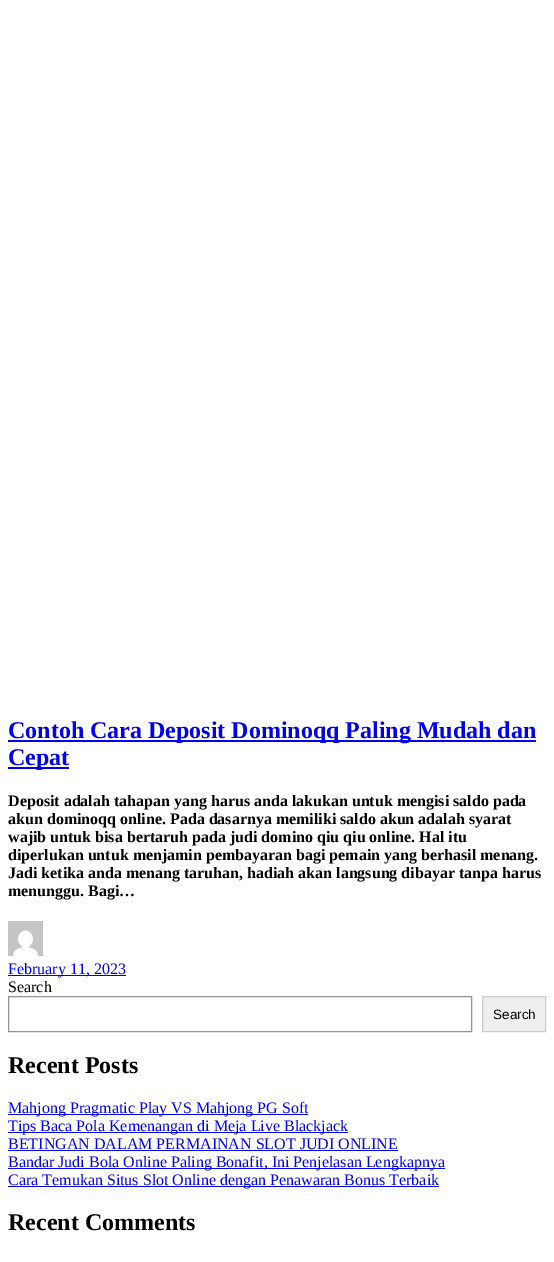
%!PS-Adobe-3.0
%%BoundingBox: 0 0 554 1262
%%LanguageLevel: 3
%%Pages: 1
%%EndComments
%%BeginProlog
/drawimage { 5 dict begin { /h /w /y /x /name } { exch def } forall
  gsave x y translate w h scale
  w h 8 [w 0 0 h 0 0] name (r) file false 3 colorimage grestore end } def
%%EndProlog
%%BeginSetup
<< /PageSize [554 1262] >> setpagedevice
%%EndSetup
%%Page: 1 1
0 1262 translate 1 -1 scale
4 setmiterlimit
1 setgray
0 0 554 1262 rectfill
0 0 0.933 setrgbcolor
8 740 528 2 rectfill
8 767 61 2 rectfill
(images/1.raw) 8 921 35 35 drawimage
8 975 118 1 rectfill
0.58 setgray
8.5 996.5 463 35 rectstroke
0.937 setgray
newpath 482.5 996.5 moveto 545.5 996.5 lineto 545.5 1031.5 lineto 482.5 1031.5 lineto closepath gsave fill grestore
0.8 setgray
stroke
0 0 0.933 setrgbcolor
8 1114 300 1 rectfill
8 1132 340 1 rectfill
8 1150 390 1 rectfill
8 1168 437 1 rectfill
8 1186 431 1 rectfill
/LiberationSerif-Bold [24 0 0 -24 0 0] selectfont
8 738 moveto (Contoh Cara Deposit Dominoqq Paling Mudah dan) show
8 765 moveto (Cepat) show
/LiberationSerif-Bold [16 0 0 -16 0 0] selectfont
0 setgray
8 806 moveto (Deposit adalah tahapan yang harus anda lakukan untuk mengisi saldo pada) show
8 824 moveto (akun dominoqq online. Pada dasarnya memiliki saldo akun adalah syarat) show
8 842 moveto (wajib untuk bisa bertaruh pada judi domino qiu qiu online. Hal itu) show
8 860 moveto (diperlukan untuk menjamin pembayaran bagi pemain yang berhasil menang.) show
8 878 moveto (Jadi ketika anda menang taruhan, hadiah akan langsung dibayar tanpa harus) show
8 896 moveto (menunggu. Bagi…) show
/LiberationSerif-Regular [16 0 0 -16 0 0] selectfont
0 0 0.933 setrgbcolor
8 974 moveto (February 11, 2023) show
0 setgray
8 992 moveto (Search) show
/LiberationSans-Regular [13.5 0 0 -13.5 0 0] selectfont
493 1019 moveto (Search) show
/LiberationSerif-Bold [24 0 0 -24 0 0] selectfont
8 1073 moveto (Recent Posts) show
/LiberationSerif-Regular [16 0 0 -16 0 0] selectfont
0 0 0.933 setrgbcolor
8 1113 moveto (Mahjong Pragmatic Play VS Mahjong PG Soft) show
8 1131 moveto (Tips Baca Pola Kemenangan di Meja Live Blackjack) show
8 1149 moveto (BETINGAN DALAM PERMAINAN SLOT JUDI ONLINE) show
8 1167 moveto (Bandar Judi Bola Online Paling Bonafit, Ini Penjelasan Lengkapnya) show
8 1185 moveto (Cara Temukan Situs Slot Online dengan Penawaran Bonus Terbaik) show
/LiberationSerif-Bold [24 0 0 -24 0 0] selectfont
0 setgray
8 1230 moveto (Recent Comments) show
showpage
%%EOF
